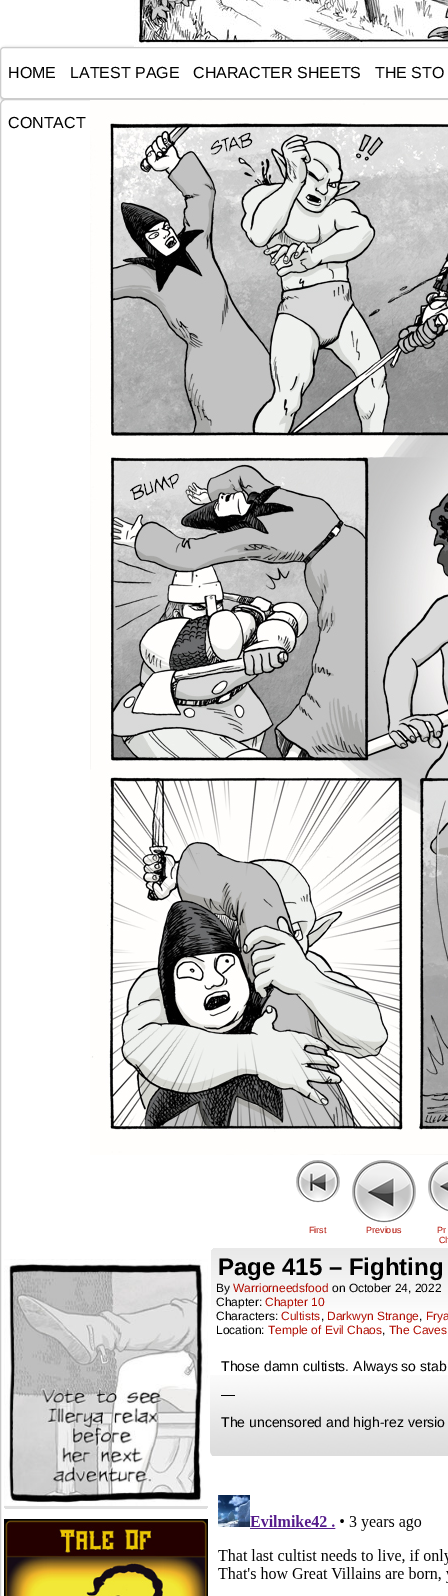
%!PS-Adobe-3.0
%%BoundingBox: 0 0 448 1596
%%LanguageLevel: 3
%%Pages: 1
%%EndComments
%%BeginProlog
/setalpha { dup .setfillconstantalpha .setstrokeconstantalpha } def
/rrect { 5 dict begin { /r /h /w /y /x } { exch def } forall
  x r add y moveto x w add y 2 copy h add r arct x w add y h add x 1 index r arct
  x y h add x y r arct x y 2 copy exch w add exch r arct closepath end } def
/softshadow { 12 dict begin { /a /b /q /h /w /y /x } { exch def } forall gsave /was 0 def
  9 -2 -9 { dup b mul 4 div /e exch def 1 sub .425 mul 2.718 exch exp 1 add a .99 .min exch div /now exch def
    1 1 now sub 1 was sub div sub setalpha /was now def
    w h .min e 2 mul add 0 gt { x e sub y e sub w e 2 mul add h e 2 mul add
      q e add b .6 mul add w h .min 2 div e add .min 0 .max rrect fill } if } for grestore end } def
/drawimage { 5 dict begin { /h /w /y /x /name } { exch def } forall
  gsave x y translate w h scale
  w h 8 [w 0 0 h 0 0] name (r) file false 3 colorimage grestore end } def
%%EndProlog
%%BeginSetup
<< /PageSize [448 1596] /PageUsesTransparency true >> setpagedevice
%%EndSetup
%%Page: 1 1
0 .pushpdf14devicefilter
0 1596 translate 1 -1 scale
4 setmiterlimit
1 setgray
0 0 448 1596 rectfill
0 setgray
2 49 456 52 4 2 0.2 softshadow
0.078 setgray
1 48 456 52 4 1.5 0.2 softshadow
(images/1.raw) 134 0 314 47 drawimage
1 setgray
0.5 47.5 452 51 3.5 rrect gsave fill grestore
0.8 setgray
stroke
1 setgray
0.5 99.5 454 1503 5.5 rrect gsave fill grestore
0.8 setgray
stroke
(images/2.raw) 90 100 358 1055 drawimage
(images/3.raw) 296 1160 44 43 drawimage
(images/4.raw) 352 1160 64 63 drawimage
(images/5.raw) 428 1161 20 50 drawimage
gsave 4 1259 204 250 4 rrect clip newpath
<< /ShadingType 2 /ColorSpace /DeviceRGB /Coords [106 1259 106 1509] /Extend [true true] /Function << /FunctionType 3 /Domain [0 1] /Functions [<< /FunctionType 2 /Domain [0 1] /C0 [1 1 1] /C1 [1 1 1] /N 1 >> << /FunctionType 2 /Domain [0 1] /C0 [1 1 1] /C1 [0.875 0.875 0.875] /N 1 >>] /Bounds [0.49] /Encode [0 1 0 1] >> >> shfill grestore
(images/6.raw) 4 1259 204 247 drawimage
(images/7.raw) 4 1519 204 77 drawimage
(images/8.raw) 210 1375 238 81 drawimage
gsave 211 1248 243 94 6 rrect clip newpath
<< /ShadingType 2 /ColorSpace /DeviceRGB /Coords [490 1248 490 1342] /Extend [true true] /Function << /FunctionType 3 /Domain [0 1] /Functions [<< /FunctionType 2 /Domain [0 1] /C0 [0.914 0.914 0.914] /C1 [1 1 1] /N 1 >> << /FunctionType 2 /Domain [0 1] /C0 [1 1 1] /C1 [1 1 1] /N 1 >>] /Bounds [0.8] /Encode [0 1 0 1] >> >> shfill grestore
(images/9.raw) 218 1495 230 88 drawimage
/LiberationSans-Regular [16 0 0 -16 0 0] selectfont
0 setgray
8 78 moveto (HOME) show
70 78 moveto (LATEST PAGE) show
193 78 moveto (CHARACTER SHEETS) show
375 78 moveto (THE STO) show
8 128 moveto (CONTACT) show
/LiberationSans-Regular [9 0 0 -9 0 0] selectfont
0.69 0.043 0 setrgbcolor
309 1233 moveto (First) show
366 1233 moveto (Previous) show
437 1233 moveto (Pr) show
439 1243 moveto (Ch) show
/LiberationSans-Bold [24 0 0 -24 0 0] selectfont
0 setgray
218 1275 moveto (Page 415 – Fighting) show
/LiberationSans-Regular [12 0 0 -12 0 0] selectfont
216 1292 moveto (By) show
0.69 0.043 0 setrgbcolor
233 1292 moveto (Warriorneedsfood) show
0 setgray
332 1292 moveto (on October 24, 2022) show
216 1306 moveto (Chapter:) show
0.69 0.043 0 setrgbcolor
265 1306 moveto (Chapter 10) show
0 setgray
216 1320 moveto (Characters:) show
0.69 0.043 0 setrgbcolor
281 1320 moveto (Cultists) show
0 setgray
321 1320 moveto (,) show
0.69 0.043 0 setrgbcolor
327 1320 moveto (Darkwyn Strange) show
0 setgray
419 1320 moveto (,) show
0.69 0.043 0 setrgbcolor
426 1320 moveto (Frya) show
0 setgray
216 1334 moveto (Location:) show
0.69 0.043 0 setrgbcolor
268 1334 moveto (Temple of Evil Chaos) show
0 setgray
382 1334 moveto (,) show
0.69 0.043 0 setrgbcolor
389 1334 moveto (The Caves) show
/LiberationSans-Regular [14 0 0 -14 0 0] selectfont
0 setgray
221 1371 moveto (Those damn cultists. Always so stab) show
221 1399 moveto (—) show
221 1427 moveto (The uncensored and high-rez versio) show
.poppdf14devicefilter showpage
%%EOF
